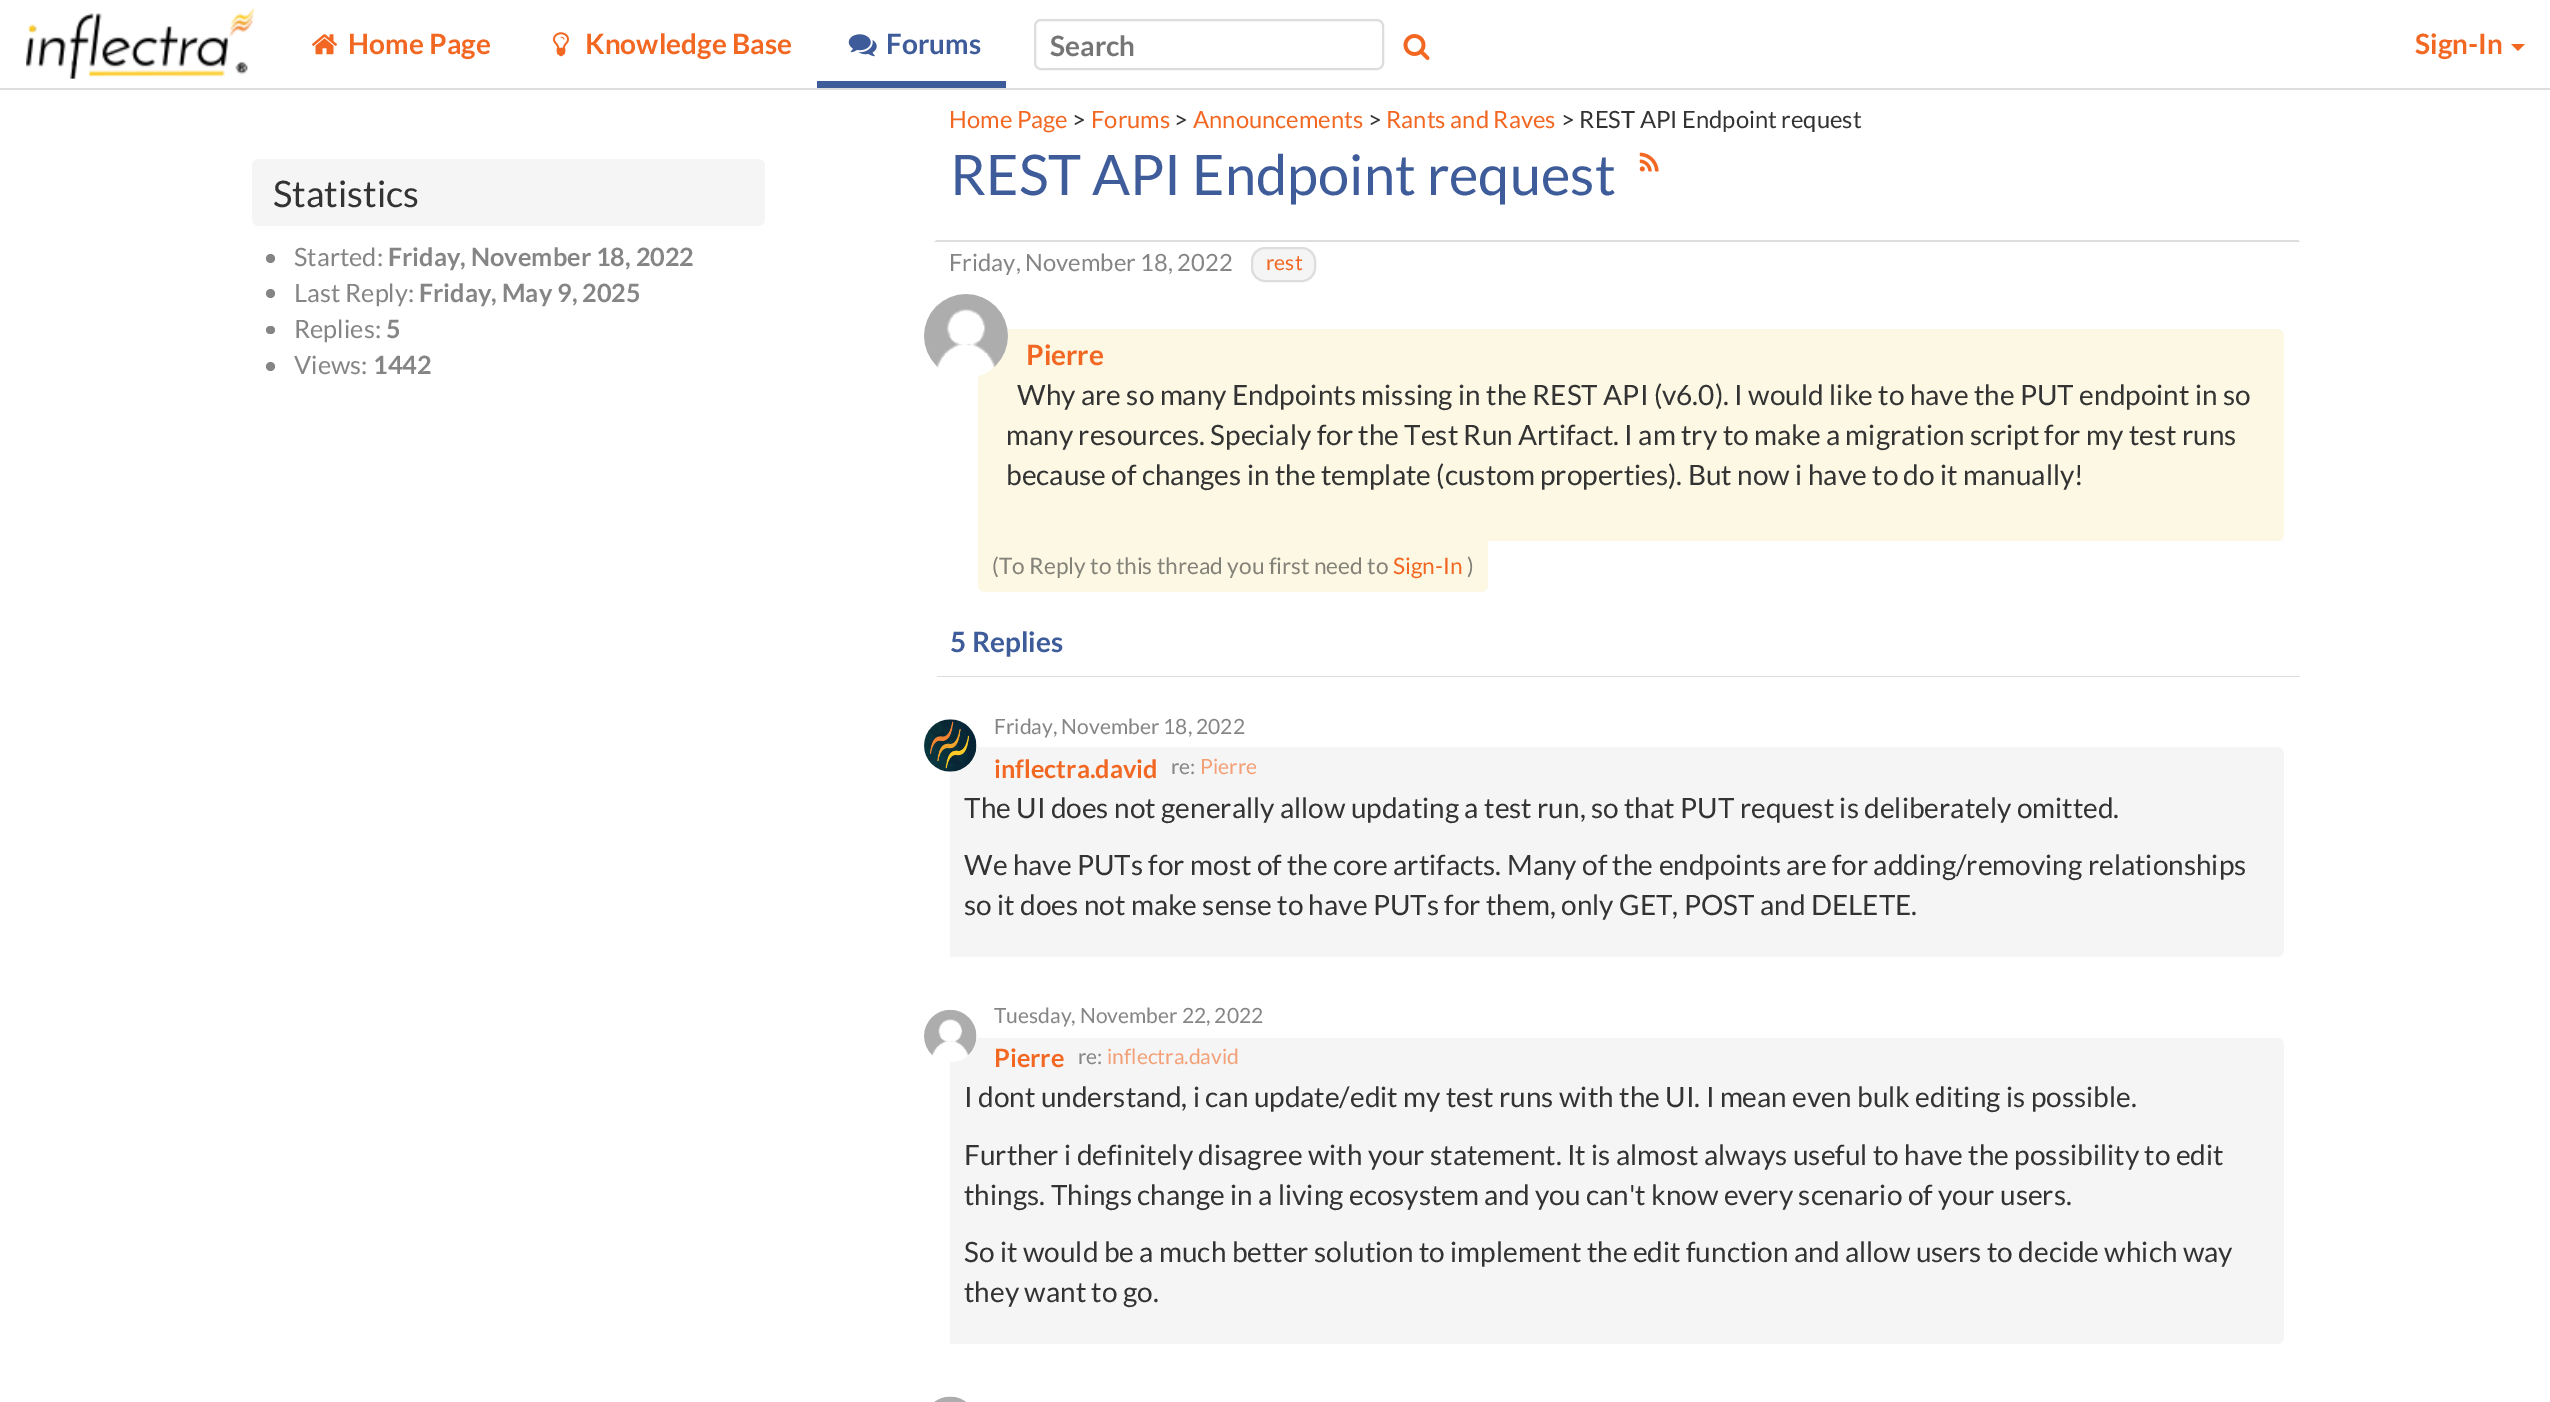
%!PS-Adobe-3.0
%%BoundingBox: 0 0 2550 1402
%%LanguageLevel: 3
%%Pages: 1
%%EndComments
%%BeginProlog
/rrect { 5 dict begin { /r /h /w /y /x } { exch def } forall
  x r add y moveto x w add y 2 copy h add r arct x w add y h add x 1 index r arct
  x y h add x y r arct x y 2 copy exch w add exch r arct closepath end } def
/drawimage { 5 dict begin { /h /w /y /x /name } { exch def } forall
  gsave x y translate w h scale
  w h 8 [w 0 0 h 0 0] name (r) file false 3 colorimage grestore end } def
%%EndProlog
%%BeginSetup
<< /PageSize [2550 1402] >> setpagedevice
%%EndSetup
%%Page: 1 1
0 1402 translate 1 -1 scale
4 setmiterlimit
1 setgray
0 0 2550 1402 rectfill
0.867 setgray
0 88 2550 2 rectfill
(images/1.raw) 26 8 229 71 drawimage
(images/2.raw) 311 34 27 21 drawimage
(images/3.raw) 553 32 16 25 drawimage
0.243 0.357 0.604 setrgbcolor
817 81 189 7 rectfill
(images/4.raw) 848 34 29 23 drawimage
0.867 setgray
2 setlinewidth
1035 20 348 49 6 rrect stroke
(images/5.raw) 1403 34 27 26 drawimage
0.949 0.404 0.133 setrgbcolor
newpath 2511 44 moveto 2525 44 lineto 2518 51 lineto closepath fill
0.961 setgray
252 159 513 67 7 rrect fill
0.522 setgray
newpath 270.5 258.5 4.5 0 360 arc closepath fill
newpath 270.5 293.5 4.5 0 360 arc closepath fill
266 326 9 8 4 rrect fill
newpath 270.5 366.5 4.5 0 360 arc closepath fill
0.867 setgray
newpath 2300 242 moveto 2298 240 lineto 936 240 lineto 934 242 lineto closepath fill
1 setgray
newpath 934 242 moveto 934 145 lineto 936 142 lineto 938 143 lineto 937 144 936 146 936 147 curveto 936 240 lineto closepath fill
(images/6.raw) 1639 152 20 20 drawimage
0.961 setgray
1252 248 63 33 13 rrect gsave fill grestore
0.867 setgray
stroke
0.988 0.973 0.89 setrgbcolor
newpath 985 329 moveto 2277 329 lineto 2281 329 2284 332 2284 336 curveto 2284 534 lineto 2284 538 2281 541 2277 541 curveto 978 541 lineto 978 336 lineto 978 332 981 329 985 329 curveto closepath fill
1 setgray
newpath 966 336 42 0 360 arc closepath fill
(images/7.raw) 924 294 84 74 drawimage
0.988 0.973 0.89 setrgbcolor
newpath 978 541 moveto 1488 541 lineto 1488 585 lineto 1488 589 1485 592 1481 592 curveto 985 592 lineto 981 592 978 589 978 585 curveto closepath fill
0.867 setgray
935 676 1365 1 rectfill
1 setgray
935 676 2 1 rectfill
0.961 setgray
newpath 957 747 moveto 2277 747 lineto 2281 747 2284 750 2284 754 curveto 2284 950 lineto 2284 954 2281 957 2277 957 curveto 950 957 lineto 950 754 lineto 950 750 953 747 957 747 curveto closepath fill
1 setgray
newpath 950.5 745.5 26.5 0 360 arc closepath fill
(images/8.raw) 924 719 53 53 drawimage
0.961 setgray
newpath 957 1038 moveto 2277 1038 lineto 2281 1038 2284 1041 2284 1045 curveto 2284 1337 lineto 2284 1341 2281 1344 2277 1344 curveto 950 1344 lineto 950 1045 lineto 950 1041 953 1038 957 1038 curveto closepath fill
1 setgray
924 1010 53 52 26 rrect fill
(images/9.raw) 924 1009 53 47 drawimage
(images/10.raw) 934 1396 32 6 drawimage
/Lato-Bold [28 0 0 -28 0 0] selectfont
0.949 0.404 0.133 setrgbcolor
348 54 moveto (Home Page) show
585 54 moveto (Knowledge Base) show
0.243 0.357 0.604 setrgbcolor
886 54 moveto (Forums) show
0.459 setgray
1050 56 moveto (Search) show
0.949 0.404 0.133 setrgbcolor
2415 54 moveto (Sign-In) show
/Lato-Regular [36.5 0 0 -36.5 0 0] selectfont
0.2 setgray
273 207 moveto (Statistics) show
/Lato-Regular [25.25 0 0 -25.25 0 0] selectfont
0.522 setgray
294 266 moveto (Started:) show
/Lato-Bold [25.25 0 0 -25.25 0 0] selectfont
388 266 moveto (Friday, November 18, 2022) show
/Lato-Regular [25.25 0 0 -25.25 0 0] selectfont
294 302 moveto (Last Reply:) show
/Lato-Bold [25.25 0 0 -25.25 0 0] selectfont
419 302 moveto (Friday, May 9, 2025) show
/Lato-Regular [25.25 0 0 -25.25 0 0] selectfont
294 338 moveto (Replies:) show
/Lato-Bold [25.25 0 0 -25.25 0 0] selectfont
386 338 moveto (5) show
/Lato-Regular [25.25 0 0 -25.25 0 0] selectfont
294 374 moveto (Views:) show
/Lato-Bold [25.25 0 0 -25.25 0 0] selectfont
373 374 moveto (1442) show
/Lato-Regular [23.75 0 0 -23.75 0 0] selectfont
0.949 0.404 0.133 setrgbcolor
949 128 moveto (Home Page) show
0.2 setgray
1072 128 moveto (>) show
0.949 0.404 0.133 setrgbcolor
1091 128 moveto (Forums) show
0.2 setgray
1174 128 moveto (>) show
0.949 0.404 0.133 setrgbcolor
1193 128 moveto (Announcements) show
0.2 setgray
1368 128 moveto (>) show
0.949 0.404 0.133 setrgbcolor
1386 128 moveto (Rants and Raves) show
0.2 setgray
1561 128 moveto (> REST API Endpoint request) show
/Lato-Regular [56 0 0 -56 0 0] selectfont
0.243 0.357 0.604 setrgbcolor
950 195 moveto (REST API Endpoint request) show
/Lato-Regular [23.75 0 0 -23.75 0 0] selectfont
0.522 setgray
949 271 moveto (Friday, November 18, 2022) show
/Lato-Regular [21 0 0 -21 0 0] selectfont
0.949 0.404 0.133 setrgbcolor
1266 270 moveto (rest) show
/Lato-Bold [28 0 0 -28 0 0] selectfont
1026 365 moveto (Pierre) show
/Lato-Regular [28 0 0 -28 0 0] selectfont
0.2 setgray
1017 405 moveto (Why are so many Endpoints missing in the REST API \(v6.0\). I would like to have the PUT endpoint in so) show
1006 445 moveto (many resources. Specialy for the Test Run Artifact. I am try to make a migration script for my test runs) show
1006 485 moveto (because of changes in the template \(custom properties\). But now i have to do it manually!) show
/Lato-Regular [22.7 0 0 -22.7 0 0] selectfont
0.514 0.51 0.475 setrgbcolor
992 574 moveto (\(To Reply to this thread you first need to) show
0.949 0.404 0.133 setrgbcolor
1393 574 moveto (Sign-In) show
0.514 0.51 0.475 setrgbcolor
1467 574 moveto (\)) show
/Lato-Bold [28 0 0 -28 0 0] selectfont
0.243 0.357 0.604 setrgbcolor
950 652 moveto (5 Replies) show
/Lato-Regular [21 0 0 -21 0 0] selectfont
0.522 setgray
994 734 moveto (Friday, November 18, 2022) show
/Lato-Bold [25.25 0 0 -25.25 0 0] selectfont
0.949 0.404 0.133 setrgbcolor
994 778 moveto (inflectra.david) show
/Lato-Regular [21 0 0 -21 0 0] selectfont
0.522 setgray
1171 774 moveto (re:) show
0.953 0.627 0.463 setrgbcolor
1200 774 moveto (Pierre) show
/Lato-Regular [28 0 0 -28 0 0] selectfont
0.2 setgray
964 818 moveto (The UI does not generally allow updating a test run, so that PUT request is deliberately omitted.) show
964 875 moveto (We have PUTs for most of the core artifacts. Many of the endpoints are for adding/removing relationships) show
964 915 moveto (so it does not make sense to have PUTs for them, only GET, POST and DELETE.) show
/Lato-Regular [21 0 0 -21 0 0] selectfont
0.522 setgray
994 1023 moveto (Tuesday, November 22, 2022) show
/Lato-Bold [25.25 0 0 -25.25 0 0] selectfont
0.949 0.404 0.133 setrgbcolor
994 1067 moveto (Pierre) show
/Lato-Regular [21 0 0 -21 0 0] selectfont
0.522 setgray
1078 1064 moveto (re:) show
0.953 0.627 0.463 setrgbcolor
1107 1064 moveto (inflectra.david) show
/Lato-Regular [28 0 0 -28 0 0] selectfont
0.2 setgray
964 1107 moveto (I dont understand, i can update/edit my test runs with the UI. I mean even bulk editing is possible.) show
964 1165 moveto (Further i definitely disagree with your statement. It is almost always useful to have the possibility to edit) show
964 1205 moveto (things. Things change in a living ecosystem and you can't know every scenario of your users.) show
964 1262 moveto (So it would be a much better solution to implement the edit function and allow users to decide which way) show
964 1302 moveto (they want to go.) show
showpage
%%EOF
